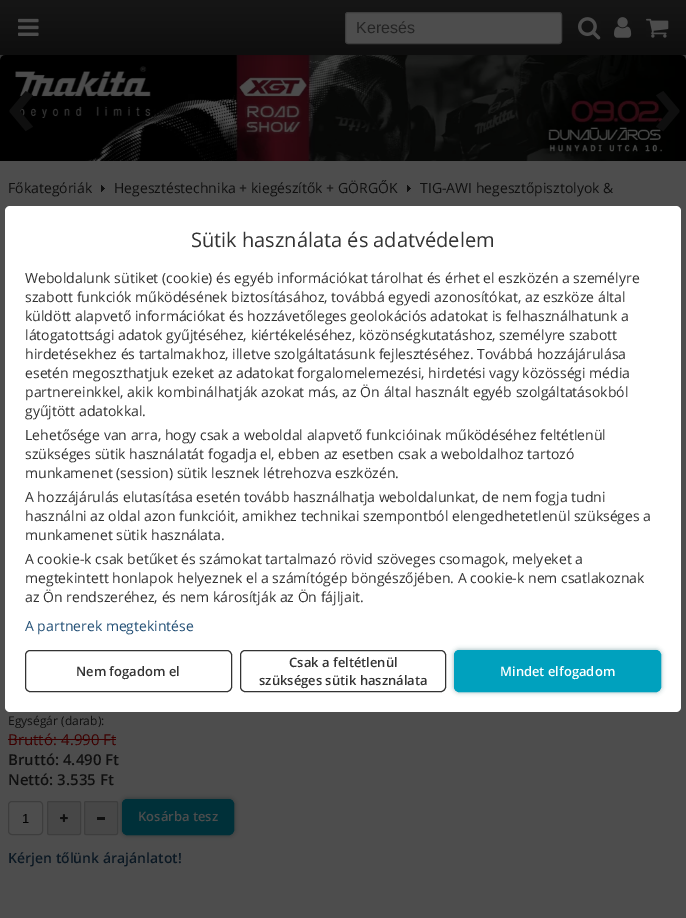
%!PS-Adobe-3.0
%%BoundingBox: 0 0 686 918
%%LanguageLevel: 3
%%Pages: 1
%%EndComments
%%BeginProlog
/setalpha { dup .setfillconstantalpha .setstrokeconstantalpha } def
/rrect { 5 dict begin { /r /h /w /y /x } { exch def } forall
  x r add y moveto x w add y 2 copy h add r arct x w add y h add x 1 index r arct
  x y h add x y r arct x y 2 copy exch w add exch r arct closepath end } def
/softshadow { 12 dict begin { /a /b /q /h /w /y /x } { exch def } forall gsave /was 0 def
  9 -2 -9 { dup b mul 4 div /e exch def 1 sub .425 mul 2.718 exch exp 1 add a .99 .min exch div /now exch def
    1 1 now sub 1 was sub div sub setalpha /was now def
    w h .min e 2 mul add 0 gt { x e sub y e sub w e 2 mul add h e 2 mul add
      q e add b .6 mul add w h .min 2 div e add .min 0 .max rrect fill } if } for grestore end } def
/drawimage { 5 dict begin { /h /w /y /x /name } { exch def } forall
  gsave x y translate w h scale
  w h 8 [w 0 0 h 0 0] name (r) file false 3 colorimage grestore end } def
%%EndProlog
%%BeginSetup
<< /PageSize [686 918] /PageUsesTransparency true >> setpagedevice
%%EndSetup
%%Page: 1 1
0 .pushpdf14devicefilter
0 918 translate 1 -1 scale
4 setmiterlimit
0.231 setgray
0 0 686 918 rectfill
0.302 setgray
0 55 686 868 5 rrect fill
(images/5.raw) 0 55 686 106 drawimage
0 setgray
0 0 686 55 0 5 0.2 softshadow
gsave newpath 0 0 moveto 686 0 lineto 686 55 lineto 0 55 lineto closepath clip newpath
<< /ShadingType 2 /ColorSpace /DeviceRGB /Coords [343 0 343 55] /Extend [true true] /Function << /FunctionType 2 /Domain [0 1] /C0 [0.086 0.086 0.086] /C1 [0.055 0.055 0.055] /N 1 >> >> shfill grestore
(images/1.raw) 18 18 21 18 drawimage
0.302 setgray
345.5 12.5 216 31 2.5 rrect gsave fill grestore
0.239 setgray
stroke
(images/2.raw) 578 17 23 23 drawimage
(images/3.raw) 614 17 18 21 drawimage
(images/4.raw) 646 18 23 20 drawimage
(images/6.raw) 101 185 4 7 drawimage
(images/6.raw) 407 185 4 7 drawimage
0.239 0 0 setrgbcolor
8 739 53 1 rectfill
61 739 55 1 rectfill
0.239 setgray
8.5 801.5 34 33 3.5 rrect stroke
0.278 setgray
47.5 801.5 33 33 1.5 rrect gsave fill grestore
0.239 setgray
stroke
(images/7.raw) 60 814 8 8 drawimage
0.278 setgray
84.5 801.5 33 33 1.5 rrect gsave fill grestore
0.239 setgray
stroke
0.059 setgray
97 817 8 3 rectfill
0 0.09 0.102 setrgbcolor
122 799 112 36 5 2.5 0.4 softshadow
0 0.188 0.224 setrgbcolor
122.5 799.5 111 35 4.5 rrect gsave fill grestore
stroke
1 setgray
5 206 676 506 5 rrect fill
0.2 setgray
25.5 650.5 206 41 4.5 rrect stroke
240.5 650.5 205 41 4.5 rrect stroke
0 0.294 0.345 setrgbcolor
454 650 207 42 5 2.5 0.4 softshadow
0 0.631 0.745 setrgbcolor
454.5 650.5 206 41 4.5 rrect gsave fill grestore
stroke
/LiberationSans-Regular [16 0 0 -16 0 0] selectfont
0.137 setgray
356 33 moveto (Keresés) show
/OpenSans-Bold [90 0 0 -90 0 0] selectfont
0.059 setgray
6 136 moveto (‹) show
653 136 moveto (›) show
/OpenSans-Regular [14 0 0 -14 0 0] selectfont
8 193 moveto (Főkategóriák) show
114 193 moveto (Hegesztéstechnika + kiegészítők + GÖRGŐK) show
420 193 moveto (TIG-AWI hegesztőpisztolyok &) show
/OpenSans-Regular [12 0 0 -12 0 0] selectfont
8 725 moveto (Egységár \(darab\):) show
/OpenSans-Regular [15 0 0 -15 0 0] selectfont
0.239 0 0 setrgbcolor
8 745 moveto (Bruttó:) show
61 745 moveto (4.990 Ft) show
/OpenSans-SemiBold [15 0 0 -15 0 0] selectfont
0.059 setgray
8 765 moveto (Bruttó: 4.490 Ft) show
8 785 moveto (Nettó: 3.535 Ft) show
/LiberationSans-Regular [13 0 0 -13 0 0] selectfont
0 setgray
22 823 moveto (1) show
/OpenSans-SemiBold [13 0 0 -13 0 0] selectfont
0.302 setgray
138 821 moveto (Kosárba tesz) show
/OpenSans-SemiBold [14 0 0 -14 0 0] selectfont
0.043 0.094 0.137 setrgbcolor
8 863 moveto (Kérjen tőlünk árajánlatot!) show
/OpenSans-Regular [20 0 0 -20 0 0] selectfont
0.2 setgray
191 247 moveto (Sütik használata és adatvédelem) show
/OpenSans-Regular [14 0 0 -14 0 0] selectfont
25 283 moveto (Weboldalunk sütiket \(cookie\) és egyéb információkat tárolhat és érhet el eszközén a személyre) show
25 302 moveto (szabott funkciók működésének biztosításához, továbbá egyedi azonosítókat, az eszköze által) show
25 321 moveto (küldött alapvető információkat és hozzávetőleges geolokációs adatokat is felhasználhatunk a) show
25 340 moveto (látogatottsági adatok gyűjtéséhez, kiértékeléséhez, közönségkutatáshoz, személyre szabott) show
25 359 moveto (hirdetésekhez és tartalmakhoz, illetve szolgáltatásunk fejlesztéséhez. Továbbá hozzájárulása) show
25 378 moveto (esetén megoszthatjuk ezeket az adatokat forgalomelemezési, hirdetési vagy közösségi média) show
25 397 moveto (partnereinkkel, akik kombinálhatják azokat más, az Ön által használt egyéb szolgáltatásokból) show
25 416 moveto (gyűjtött adatokkal.) show
25 440 moveto (Lehetősége van arra, hogy csak a weboldal alapvető funkcióinak működéséhez feltétlenül) show
25 459 moveto (szükséges sütik használatát fogadja el, ebben az esetben csak a weboldalhoz tartozó) show
25 478 moveto (munkamenet \(session\) sütik lesznek létrehozva eszközén.) show
25 502 moveto (A hozzájárulás elutasítása esetén tovább használhatja weboldalunkat, de nem fogja tudni) show
25 521 moveto (használni az oldal azon funkcióit, amikhez technikai szempontból elengedhetetlenül szükséges a) show
25 540 moveto (munkamenet sütik használata.) show
25 564 moveto (A cookie-k csak betűket és számokat tartalmazó rövid szöveges csomagok, melyeket a) show
25 583 moveto (megtekintett honlapok helyeznek el a számítógép böngészőjében. A cookie-k nem csatlakoznak) show
25 602 moveto (az Ön rendszeréhez, és nem károsítják az Ön fájljait.) show
0.141 0.314 0.463 setrgbcolor
25 631 moveto (A partnerek megtekintése) show
/OpenSans-SemiBold [13 0 0 -13 0 0] selectfont
0.2 setgray
76 676 moveto (Nem fogadom el) show
289 667 moveto (Csak a feltétlenül) show
259 685 moveto (szükséges sütik használata) show
1 setgray
500 676 moveto (Mindet elfogadom) show
.poppdf14devicefilter showpage
%%EOF
